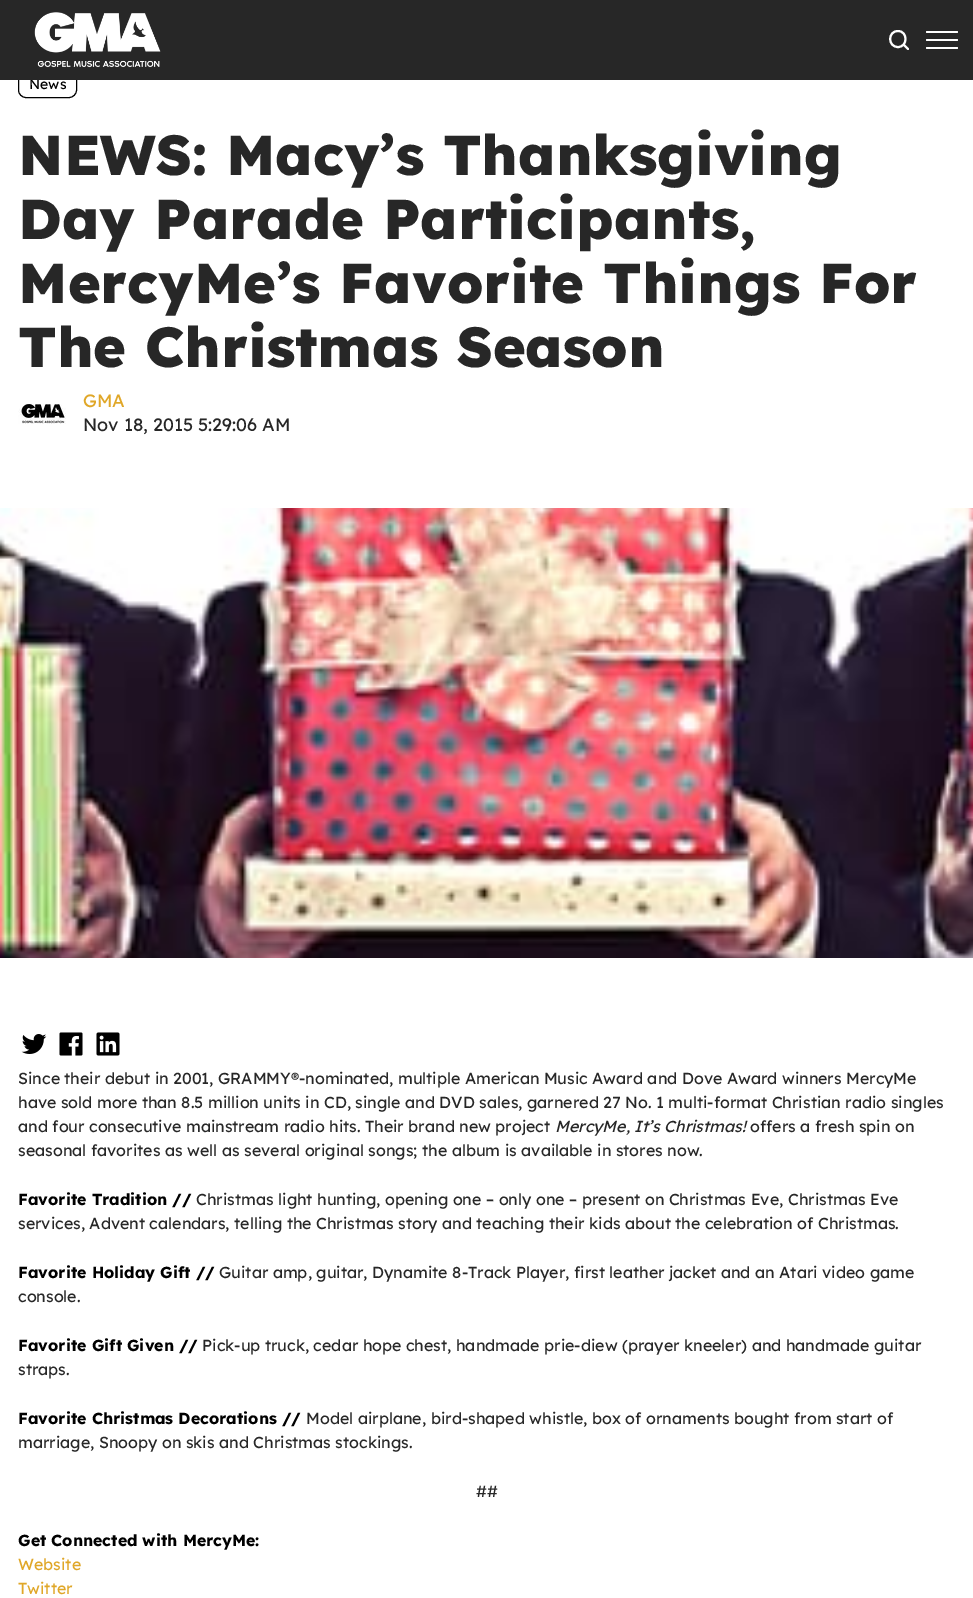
%!PS-Adobe-3.0
%%BoundingBox: 0 0 973 1598
%%LanguageLevel: 3
%%Pages: 1
%%EndComments
%%BeginProlog
/rrect { 5 dict begin { /r /h /w /y /x } { exch def } forall
  x r add y moveto x w add y 2 copy h add r arct x w add y h add x 1 index r arct
  x y h add x y r arct x y 2 copy exch w add exch r arct closepath end } def
/drawimage { 5 dict begin { /h /w /y /x /name } { exch def } forall
  gsave x y translate w h scale
  w h 8 [w 0 0 h 0 0] name (r) file false 3 colorimage grestore end } def
%%EndProlog
%%BeginSetup
<< /PageSize [973 1598] >> setpagedevice
%%EndSetup
%%Page: 1 1
0 1598 translate 1 -1 scale
4 setmiterlimit
1 setgray
0 0 973 1598 rectfill
0 setgray
18.5 70.5 58 27 7.5 rrect stroke
(images/2.raw) 18 404 48 20 drawimage
(images/3.raw) 0 508 973 450 drawimage
(images/4.raw) 21 1034 26 20 drawimage
(images/5.raw) 59 1032 24 24 drawimage
(images/6.raw) 96 1032 24 24 drawimage
/LexendDeca-Regular [14 0 0 -14 0 0] selectfont
29 89 moveto (News) show
0.153 setgray
0 0 973 80 rectfill
1 setgray
2 setlinewidth
1 setlinecap
1 setlinejoin
newpath 898 47 moveto 908 47 908 31 898 31 curveto 887.5 31 887.5 47 898 47 curveto closepath 903.5 44.5 moveto 908 49 lineto stroke
926 47 32 2 1 rrect fill
926 39 32 2 1 rrect fill
926 31 32 2 1 rrect fill
(images/1.raw) 34 12 127 56 drawimage
/Lexend-ExtraBold [56 0 0 -56 0 0] selectfont
0.153 setgray
18 175 moveto (NEWS: Macy’s Thanksgiving) show
18 239 moveto (Day Parade Participants,) show
18 303 moveto (MercyMe’s Favorite Things For) show
18 367 moveto (The Christmas Season) show
/Lexend-Regular [18 0 0 -18 0 0] selectfont
0.878 0.655 0.157 setrgbcolor
83 407 moveto (GMA) show
0.153 setgray
83 431 moveto (Nov 18, 2015 5:29:06 AM) show
/Lexend-Regular [16 0 0 -16 0 0] selectfont
18 1084 moveto (Since their debut in 2001, GRAMMY®-nominated, multiple American Music Award and Dove Award winners MercyMe) show
18 1108 moveto (have sold more than 8.5 million units in CD, single and DVD sales, garnered 27 No. 1 multi-format Christian radio singles) show
18 1132 moveto (and four consecutive mainstream radio hits. Their brand new project) show
/Lexend-Italic [16 0 0 -16 0 0] selectfont
555 1132 moveto (MercyMe, It’s Christmas!) show
/Lexend-Regular [16 0 0 -16 0 0] selectfont
750 1132 moveto (offers a fresh spin on) show
18 1156 moveto (seasonal favorites as well as several original songs; the album is available in stores now.) show
/Lexend-Bold [16 0 0 -16 0 0] selectfont
0 setgray
18 1205 moveto (Favorite Tradition //) show
/Lexend-Regular [16 0 0 -16 0 0] selectfont
0.153 setgray
196 1205 moveto (Christmas light hunting, opening one – only one – present on Christmas Eve, Christmas Eve) show
18 1229 moveto (services, Advent calendars, telling the Christmas story and teaching their kids about the celebration of Christmas.) show
/Lexend-Bold [16 0 0 -16 0 0] selectfont
0 setgray
18 1278 moveto (Favorite Holiday Gift //) show
/Lexend-Regular [16 0 0 -16 0 0] selectfont
0.153 setgray
219 1278 moveto (Guitar amp, guitar, Dynamite 8-Track Player, first leather jacket and an Atari video game) show
18 1302 moveto (console.) show
/Lexend-Bold [16 0 0 -16 0 0] selectfont
0 setgray
18 1351 moveto (Favorite Gift Given //) show
/Lexend-Regular [16 0 0 -16 0 0] selectfont
0.153 setgray
202 1351 moveto (Pick-up truck, cedar hope chest, handmade prie-diew \(prayer kneeler\) and handmade guitar) show
18 1375 moveto (straps.) show
/Lexend-Bold [16 0 0 -16 0 0] selectfont
0 setgray
18 1424 moveto (Favorite Christmas Decorations //) show
/Lexend-Regular [16 0 0 -16 0 0] selectfont
0.153 setgray
306 1424 moveto (Model airplane, bird-shaped whistle, box of ornaments bought from start of) show
18 1448 moveto (marriage, Snoopy on skis and Christmas stockings.) show
476 1497 moveto (##) show
/Lexend-Bold [16 0 0 -16 0 0] selectfont
0 setgray
18 1546 moveto (Get Connected with MercyMe:) show
/Lexend-Regular [16 0 0 -16 0 0] selectfont
0.878 0.655 0.157 setrgbcolor
18 1570 moveto (Website) show
18 1594 moveto (Twitter) show
showpage
%%EOF
